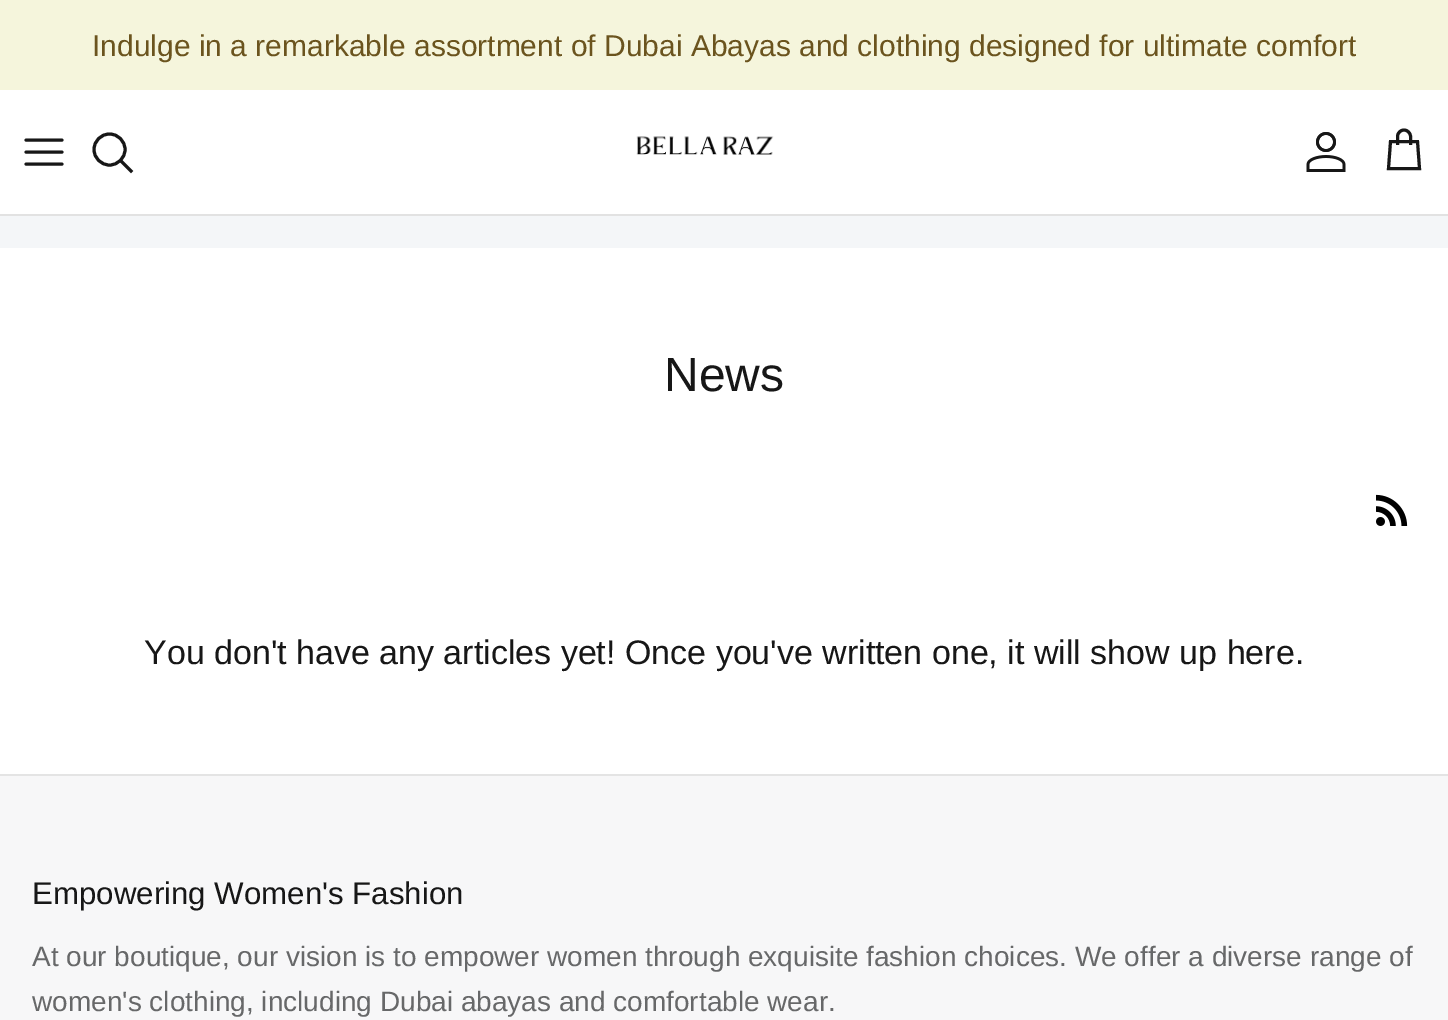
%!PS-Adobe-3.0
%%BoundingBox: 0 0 1448 1020
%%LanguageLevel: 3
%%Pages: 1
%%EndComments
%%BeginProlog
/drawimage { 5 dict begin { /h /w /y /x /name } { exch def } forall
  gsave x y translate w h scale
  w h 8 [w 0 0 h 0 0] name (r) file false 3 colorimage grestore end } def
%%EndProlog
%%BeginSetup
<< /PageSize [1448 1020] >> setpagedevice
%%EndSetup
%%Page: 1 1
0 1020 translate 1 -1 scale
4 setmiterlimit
1 setgray
0 0 1448 1020 rectfill
0.961 0.961 0.863 setrgbcolor
0 0 1448 90 rectfill
0.886 setgray
0 214 1448 2 rectfill
0.09 setgray
3 setlinewidth
1 setlinecap
1 setlinejoin
newpath 26 152 moveto 62 152 lineto 26 140 moveto 62 140 lineto 26 164 moveto 62 164 lineto stroke
0 setlinecap
0 setlinejoin
newpath 109.5 149.5 15.5 0 360 arc closepath stroke
2 setlinecap
newpath 122 162 moveto 131 171 lineto stroke
(images/1.raw) 636 136 138 19 drawimage
(images/2.raw) 1306 132 40 40 drawimage
0 setlinecap
newpath 1410.5 145 moveto 1410.5 136.5 lineto 1410.5 133 1407.5 130 1404 130 curveto 1400.5 130 1397.5 133 1397.5 136.5 curveto 1397.5 145 lineto 1390.5 141.5 moveto 1417.5 141.5 lineto 1419.5 168.5 lineto 1388.5 168.5 lineto closepath stroke
0.957 0.965 0.973 setrgbcolor
0 216 1448 32 rectfill
(images/3.raw) 1376 494 32 32 drawimage
0.969 0.969 0.973 setrgbcolor
0 776 1448 244 rectfill
0.894 setgray
0 774 1448 2 rectfill
/Arimo-Regular [30 0 0 -30 0 0] selectfont
0.42 0.329 0.118 setrgbcolor
92 56 moveto (Indulge in a remarkable assortment of Dubai Abayas and clothing designed for ultimate comfort) show
/Arimo-Regular [48 0 0 -48 0 0] selectfont
0.09 setgray
664 391 moveto (News) show
/Arimo-Regular [34 0 0 -34 0 0] selectfont
144 664 moveto (You don't have any articles yet! Once you've written one, it will show up here.) show
/Arimo-Regular [31.25 0 0 -31.25 0 0] selectfont
32 904 moveto (Empowering Women's Fashion) show
/Arimo-Regular [28 0 0 -28 0 0] selectfont
0.404 0.408 0.412 setrgbcolor
32 966 moveto (At our boutique, our vision is to empower women through exquisite fashion choices. We offer a diverse range of) show
32 1011 moveto (women's clothing, including Dubai abayas and comfortable wear.) show
showpage
%%EOF
